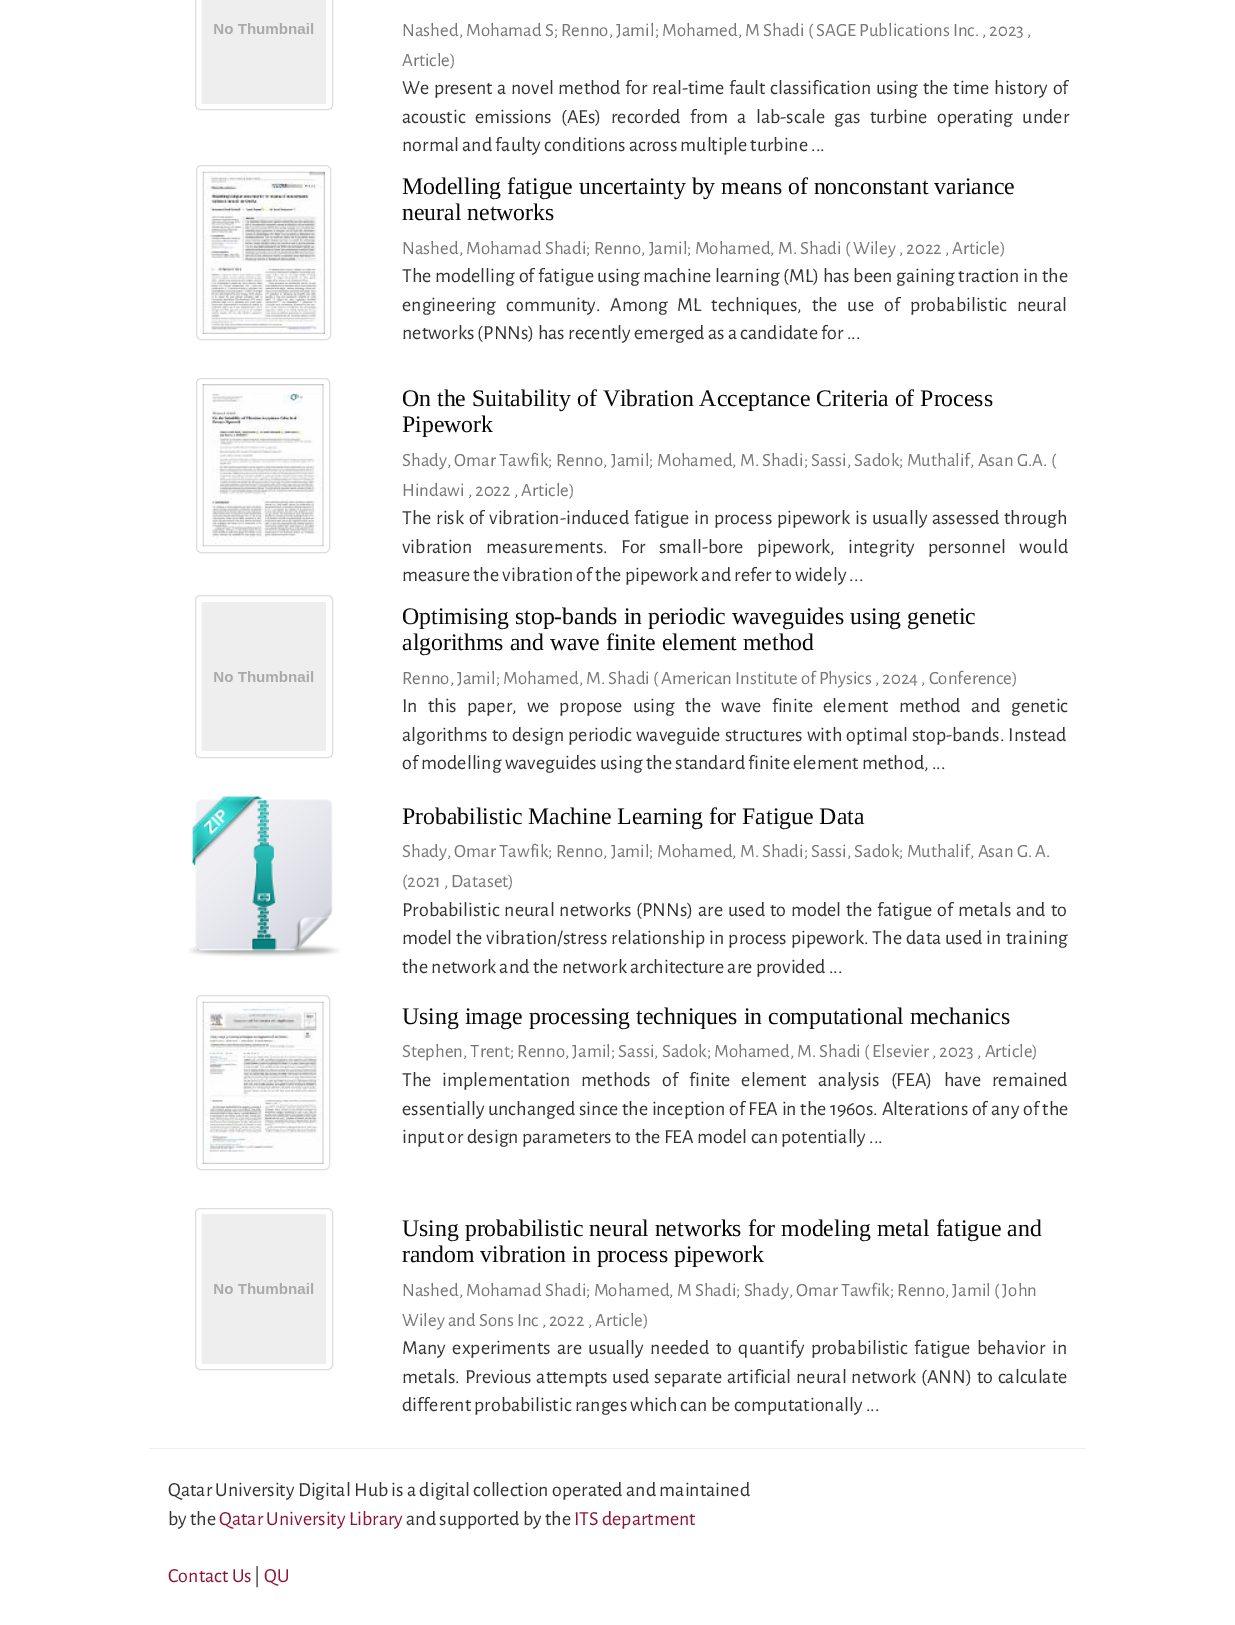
%!PS-Adobe-3.0
%%BoundingBox: 0 0 1235 1625
%%LanguageLevel: 3
%%Pages: 1
%%EndComments
%%BeginProlog
/rrect { 5 dict begin { /r /h /w /y /x } { exch def } forall
  x r add y moveto x w add y 2 copy h add r arct x w add y h add x 1 index r arct
  x y h add x y r arct x y 2 copy exch w add exch r arct closepath end } def
/drawimage { 5 dict begin { /h /w /y /x /name } { exch def } forall
  gsave x y translate w h scale
  w h 8 [w 0 0 h 0 0] name (r) file false 3 colorimage grestore end } def
%%EndProlog
%%BeginSetup
<< /PageSize [1235 1625] >> setpagedevice
%%EndSetup
%%Page: 1 1
0 1625 translate 1 -1 scale
4 setmiterlimit
1 setgray
0 0 1235 1625 rectfill
0.867 setgray
195.5 -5.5 137 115 4.5 rrect stroke
(images/1.raw) 201 0 125 104 drawimage
196.5 165.5 134 174 4.5 rrect stroke
(images/2.raw) 202 171 123 163 drawimage
196.5 378.5 133 174 4.5 rrect stroke
(images/3.raw) 202 384 122 163 drawimage
195.5 595.5 137 162 4.5 rrect stroke
(images/4.raw) 201 602 125 149 drawimage
(images/5.raw) 188 796 152 161 drawimage
196.5 995.5 133 174 4.5 rrect stroke
(images/6.raw) 202 1001 122 163 drawimage
195.5 1208.5 137 161 4.5 rrect stroke
(images/7.raw) 201 1214 125 150 drawimage
0.933 setgray
149 1448 937 1 rectfill
/AlegreyaSans-Regular [18.75 0 0 -18.75 0 0] selectfont
0.467 setgray
402 36 moveto (Nashed, Mohamad S; Renno, Jamil; Mohamed, M Shadi \( SAGE Publications Inc. , 2023 ,) show
402 66 moveto (Article\)) show
/AlegreyaSans-Regular [20 0 0 -20 0 0] selectfont
0.2 setgray
402 94 moveto 1.25 0 32 (We present a novel method for real-time fault classification using the time history of) widthshow
402 123 moveto 6 0 32 (acoustic emissions \(AEs\) recorded from a lab-scale gas turbine operating under) widthshow
402 151 moveto (normal and faulty conditions across multiple turbine ...) show
/LiberationSerif-Regular [23.75 0 0 -23.75 0 0] selectfont
0.031 0.031 0.027 setrgbcolor
402 194 moveto (Modelling fatigue uncertainty by means of nonconstant variance) show
402 220 moveto (neural networks) show
/AlegreyaSans-Regular [18.75 0 0 -18.75 0 0] selectfont
0.467 setgray
402 254 moveto (Nashed, Mohamad Shadi; Renno, Jamil; Mohamed, M. Shadi \( Wiley , 2022 , Article\)) show
/AlegreyaSans-Regular [20 0 0 -20 0 0] selectfont
0.2 setgray
402 282 moveto 0.25 0 32 (The modelling of fatigue using machine learning \(ML\) has been gaining traction in the) widthshow
402 311 moveto 6.5 0 32 (engineering community. Among ML techniques, the use of probabilistic neural) widthshow
402 339 moveto (networks \(PNNs\) has recently emerged as a candidate for ...) show
/LiberationSerif-Regular [23.75 0 0 -23.75 0 0] selectfont
0.031 0.031 0.027 setrgbcolor
402 406 moveto (On the Suitability of Vibration Acceptance Criteria of Process) show
402 432 moveto (Pipework) show
/AlegreyaSans-Regular [18.75 0 0 -18.75 0 0] selectfont
0.467 setgray
402 466 moveto (Shady, Omar Tawfik; Renno, Jamil; Mohamed, M. Shadi; Sassi, Sadok; Muthalif, Asan G.A. \() show
402 496 moveto (Hindawi , 2022 , Article\)) show
/AlegreyaSans-Regular [20 0 0 -20 0 0] selectfont
0.2 setgray
402 524 moveto 1.4 0 32 (The risk of vibration-induced fatigue in process pipework is usually assessed through) widthshow
402 553 moveto 10 0 32 (vibration measurements. For small-bore pipework, integrity personnel would) widthshow
402 581 moveto (measure the vibration of the pipework and refer to widely ...) show
/LiberationSerif-Regular [23.75 0 0 -23.75 0 0] selectfont
0.031 0.031 0.027 setrgbcolor
402 624 moveto (Optimising stop-bands in periodic waveguides using genetic) show
402 650 moveto (algorithms and wave finite element method) show
/AlegreyaSans-Regular [18.75 0 0 -18.75 0 0] selectfont
0.467 setgray
402 684 moveto (Renno, Jamil; Mohamed, M. Shadi \( American Institute of Physics , 2024 , Conference\)) show
/AlegreyaSans-Regular [20 0 0 -20 0 0] selectfont
0.2 setgray
402 712 moveto 6.75 0 32 (In this paper, we propose using the wave finite element method and genetic) widthshow
402 741 moveto 1 0 32 (algorithms to design periodic waveguide structures with optimal stop-bands. Instead) widthshow
402 769 moveto (of modelling waveguides using the standard finite element method, ...) show
/LiberationSerif-Regular [23.75 0 0 -23.75 0 0] selectfont
0.031 0.031 0.027 setrgbcolor
402 824 moveto (Probabilistic Machine Learning for Fatigue Data) show
/AlegreyaSans-Regular [18.75 0 0 -18.75 0 0] selectfont
0.467 setgray
402 857 moveto (Shady, Omar Tawfik; Renno, Jamil; Mohamed, M. Shadi; Sassi, Sadok; Muthalif, Asan G. A.) show
402 887 moveto (\(2021 , Dataset\)) show
/AlegreyaSans-Regular [20 0 0 -20 0 0] selectfont
0.2 setgray
402 916 moveto 1.5 0 32 (Probabilistic neural networks \(PNNs\) are used to model the fatigue of metals and to) widthshow
402 944 moveto 0.75 0 32 (model the vibration/stress relationship in process pipework. The data used in training) widthshow
402 973 moveto (the network and the network architecture are provided ...) show
/LiberationSerif-Regular [23.75 0 0 -23.75 0 0] selectfont
0.031 0.031 0.027 setrgbcolor
402 1024 moveto (Using image processing techniques in computational mechanics) show
/AlegreyaSans-Regular [18.75 0 0 -18.75 0 0] selectfont
0.467 setgray
402 1057 moveto (Stephen, Trent; Renno, Jamil; Sassi, Sadok; Mohamed, M. Shadi \( Elsevier , 2023 , Article\)) show
/AlegreyaSans-Regular [20 0 0 -20 0 0] selectfont
0.2 setgray
402 1086 moveto 7.75 0 32 (The implementation methods of finite element analysis \(FEA\) have remained) widthshow
402 1115 moveto 0.25 0 32 (essentially unchanged since the inception of FEA in the 1960s. Alterations of any of the) widthshow
402 1143 moveto (input or design parameters to the FEA model can potentially ...) show
/LiberationSerif-Regular [23.75 0 0 -23.75 0 0] selectfont
0.031 0.031 0.027 setrgbcolor
402 1236 moveto (Using probabilistic neural networks for modeling metal fatigue and) show
402 1262 moveto (random vibration in process pipework) show
/AlegreyaSans-Regular [18.75 0 0 -18.75 0 0] selectfont
0.467 setgray
402 1296 moveto (Nashed, Mohamad Shadi; Mohamed, M Shadi; Shady, Omar Tawfik; Renno, Jamil \( John) show
402 1326 moveto (Wiley and Sons Inc , 2022 , Article\)) show
/AlegreyaSans-Regular [20 0 0 -20 0 0] selectfont
0.2 setgray
402 1354 moveto 3.25 0 32 (Many experiments are usually needed to quantify probabilistic fatigue behavior in) widthshow
402 1383 moveto 1.6 0 32 (metals. Previous attempts used separate artificial neural network \(ANN\) to calculate) widthshow
402 1411 moveto (different probabilistic ranges which can be computationally ...) show
168 1496 moveto (Qatar University Digital Hub is a digital collection operated and maintained) show
168 1525 moveto (by the) show
0.561 0.075 0.212 setrgbcolor
219 1525 moveto (Qatar University Library) show
0.2 setgray
406 1525 moveto (and supported by the) show
0.561 0.075 0.212 setrgbcolor
574 1525 moveto (ITS department) show
168 1582 moveto (Contact Us) show
0.2 setgray
254 1582 moveto (|) show
0.561 0.075 0.212 setrgbcolor
264 1582 moveto (QU) show
showpage
%%EOF
